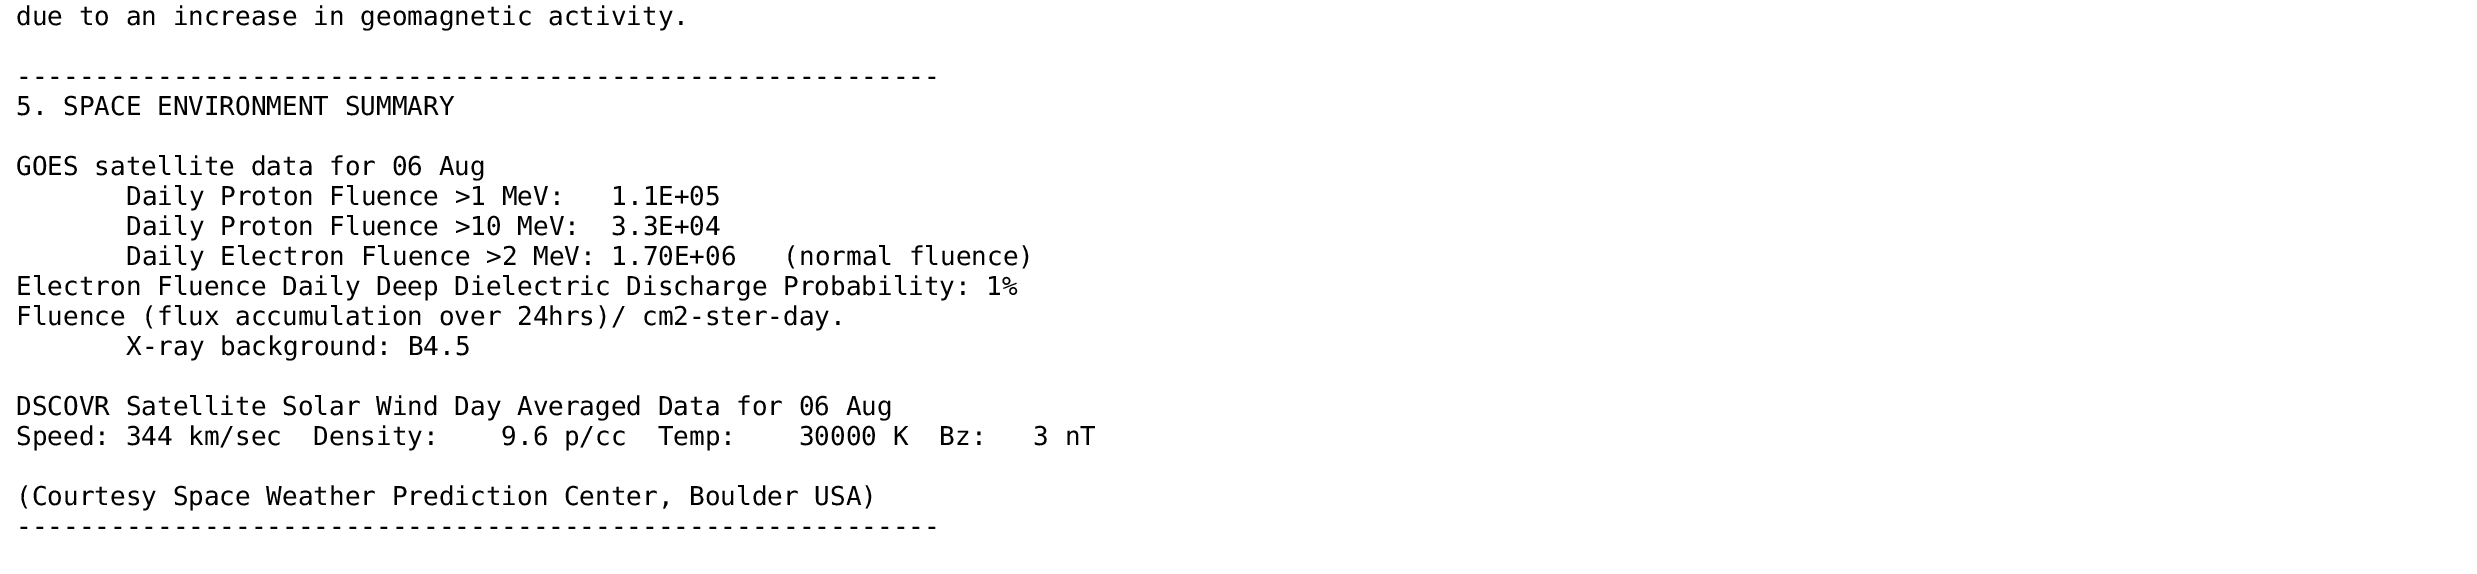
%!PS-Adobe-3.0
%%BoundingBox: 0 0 2477 574
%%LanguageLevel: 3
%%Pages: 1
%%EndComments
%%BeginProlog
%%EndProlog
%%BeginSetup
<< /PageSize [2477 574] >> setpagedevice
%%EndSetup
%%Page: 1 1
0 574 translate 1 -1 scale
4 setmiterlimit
1 setgray
0 0 2477 574 rectfill
/DejaVuSansMono-Regular [26 0 0 -26 0 0] selectfont
0 setgray
16 25 moveto (due to an increase in geomagnetic activity.) show
16 85 moveto (-----------------------------------------------------------) show
16 115 moveto (5. SPACE ENVIRONMENT SUMMARY) show
16 175 moveto (GOES satellite data for 06 Aug) show
126 205 moveto (Daily Proton Fluence >1 MeV:   1.1E+05) show
126 235 moveto (Daily Proton Fluence >10 MeV:  3.3E+04) show
126 265 moveto (Daily Electron Fluence >2 MeV: 1.70E+06   \(normal fluence\)) show
16 295 moveto (Electron Fluence Daily Deep Dielectric Discharge Probability: 1%) show
16 325 moveto (Fluence \(flux accumulation over 24hrs\)/ cm2-ster-day.) show
126 355 moveto (X-ray background: B4.5) show
16 415 moveto (DSCOVR Satellite Solar Wind Day Averaged Data for 06 Aug) show
16 445 moveto (Speed: 344 km/sec  Density:    9.6 p/cc  Temp:    30000 K  Bz:   3 nT) show
16 505 moveto (\(Courtesy Space Weather Prediction Center, Boulder USA\)) show
16 535 moveto (-----------------------------------------------------------) show
showpage
%%EOF
